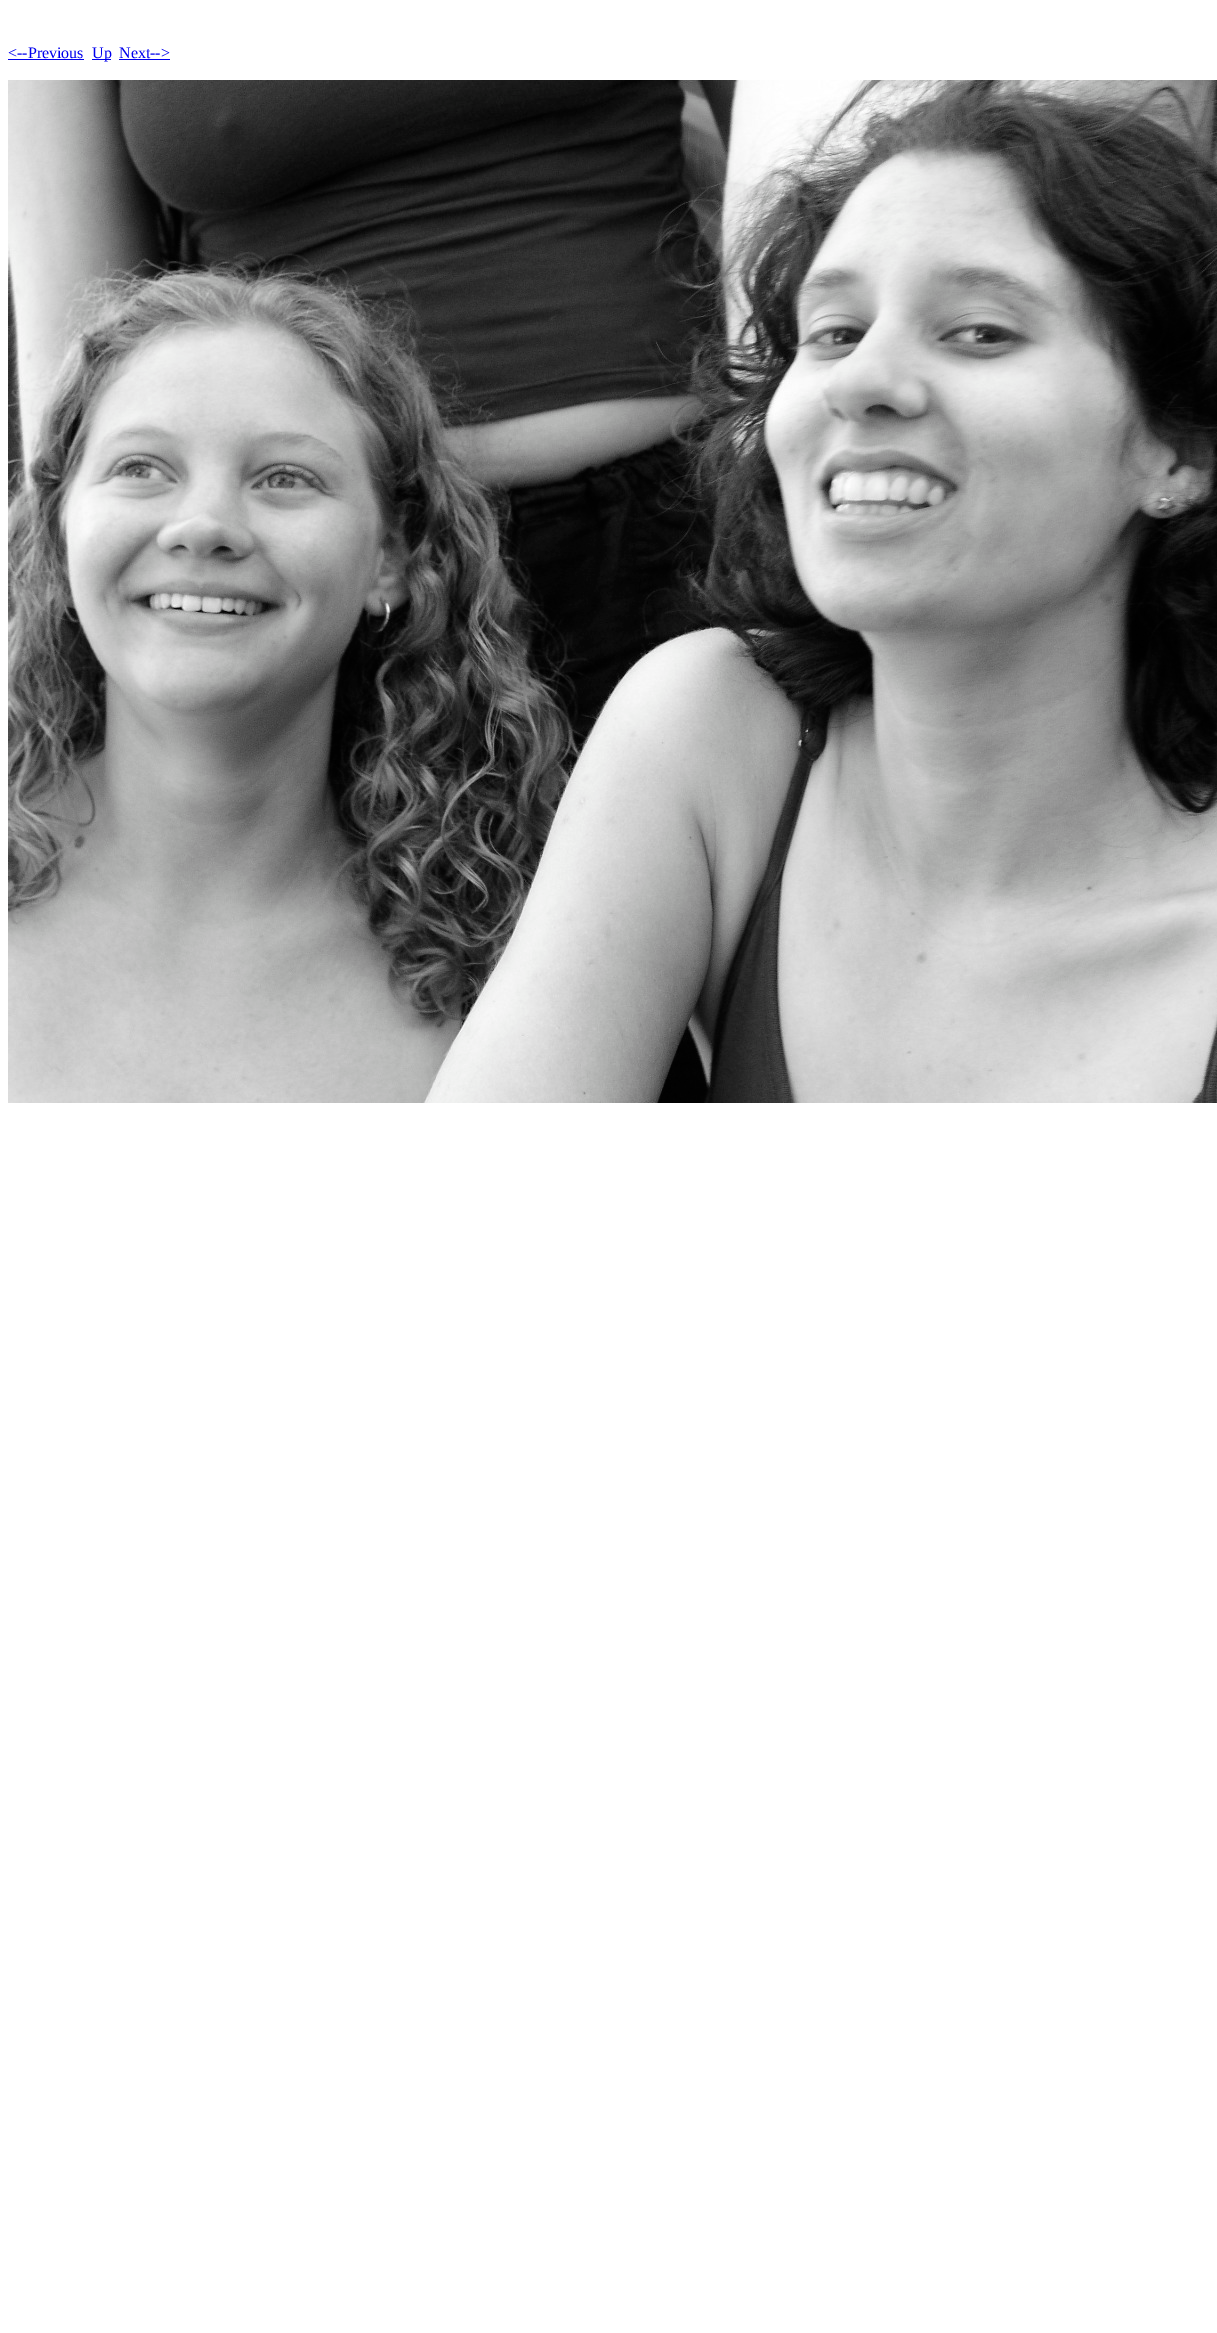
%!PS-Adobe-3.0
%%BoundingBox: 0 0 1217 2333
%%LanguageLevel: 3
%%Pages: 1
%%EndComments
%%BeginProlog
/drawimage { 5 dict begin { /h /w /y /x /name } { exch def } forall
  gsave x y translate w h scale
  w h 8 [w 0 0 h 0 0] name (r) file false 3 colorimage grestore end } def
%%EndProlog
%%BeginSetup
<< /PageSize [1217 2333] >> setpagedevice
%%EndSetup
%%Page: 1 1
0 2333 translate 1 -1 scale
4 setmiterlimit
1 setgray
0 0 1217 2333 rectfill
0 0 0.933 setrgbcolor
8 59 76 1 rectfill
92 59 19 1 rectfill
119 59 51 1 rectfill
(images/1.raw) 8 80 1209 1023 drawimage
/LiberationSerif-Regular [16 0 0 -16 0 0] selectfont
8 58 moveto (<--Previous) show
92 58 moveto (Up) show
119 58 moveto (Next-->) show
showpage
%%EOF
